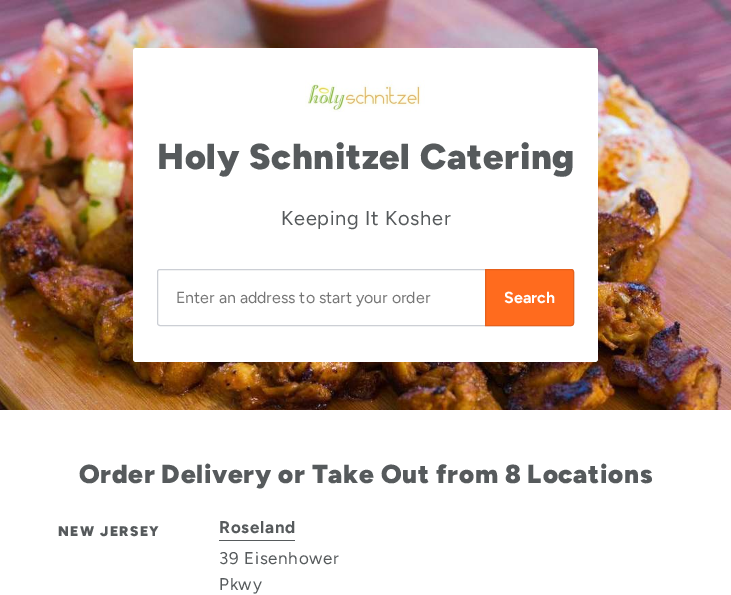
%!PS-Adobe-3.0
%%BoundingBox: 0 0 731 595
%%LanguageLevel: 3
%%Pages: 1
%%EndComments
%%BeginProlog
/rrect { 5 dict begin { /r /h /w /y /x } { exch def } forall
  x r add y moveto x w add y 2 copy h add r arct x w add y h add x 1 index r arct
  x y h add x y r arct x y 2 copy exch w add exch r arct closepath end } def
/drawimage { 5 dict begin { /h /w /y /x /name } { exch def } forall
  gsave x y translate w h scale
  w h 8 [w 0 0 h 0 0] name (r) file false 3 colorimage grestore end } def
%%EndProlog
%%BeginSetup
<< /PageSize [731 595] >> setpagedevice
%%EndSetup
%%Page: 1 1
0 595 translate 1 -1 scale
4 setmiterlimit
1 setgray
0 0 731 595 rectfill
(images/1.raw) 0 0 731 410 drawimage
133 48 465 314 3 rrect fill
(images/2.raw) 305 80 120 32 drawimage
0.8 0.812 0.835 setrgbcolor
157.5 269.5 416 56 2.5 rrect stroke
1 0.42 0.118 setrgbcolor
newpath 485.5 269.5 moveto 571 269.5 lineto 572.5 269.5 573.5 270.5 573.5 272 curveto 573.5 323 lineto 573.5 324.5 572.5 325.5 571 325.5 curveto 485.5 325.5 lineto closepath gsave fill grestore
0.902 0.376 0.106 setrgbcolor
stroke
0.337 0.353 0.361 setrgbcolor
219 540 76 1 rectfill
/Figtree-Black [36 0 0 -36 0 0] selectfont
157 169 moveto 0.7 0 (Holy Schnitzel Catering) ashow
/Figtree-Regular [20 0 0 -20 0 0] selectfont
281 225 moveto 0.7 0 (Keeping It Kosher) ashow
/Figtree-Regular [16 0 0 -16 0 0] selectfont
0.459 setgray
176 303 moveto (Enter an address to start your order) show
/Figtree-Bold [16 0 0 -16 0 0] selectfont
1 setgray
504 303 moveto (Search) show
/Figtree-Black [26 0 0 -26 0 0] selectfont
0.337 0.353 0.361 setrgbcolor
79 483 moveto -0.5 0 32 0.7 0 (Order Delivery or Take Out from 8 Locations) awidthshow
/Figtree-Black [14 0 0 -14 0 0] selectfont
58 536 moveto 1.4 0 (NEW JERSEY) ashow
/Figtree-Bold [17 0 0 -17 0 0] selectfont
219 533 moveto 0.7 0 (Roseland) ashow
/Figtree-Regular [17 0 0 -17 0 0] selectfont
219 564 moveto 0.7 0 (39 Eisenhower) ashow
219 590 moveto 0.7 0 (Pkwy) ashow
showpage
%%EOF
